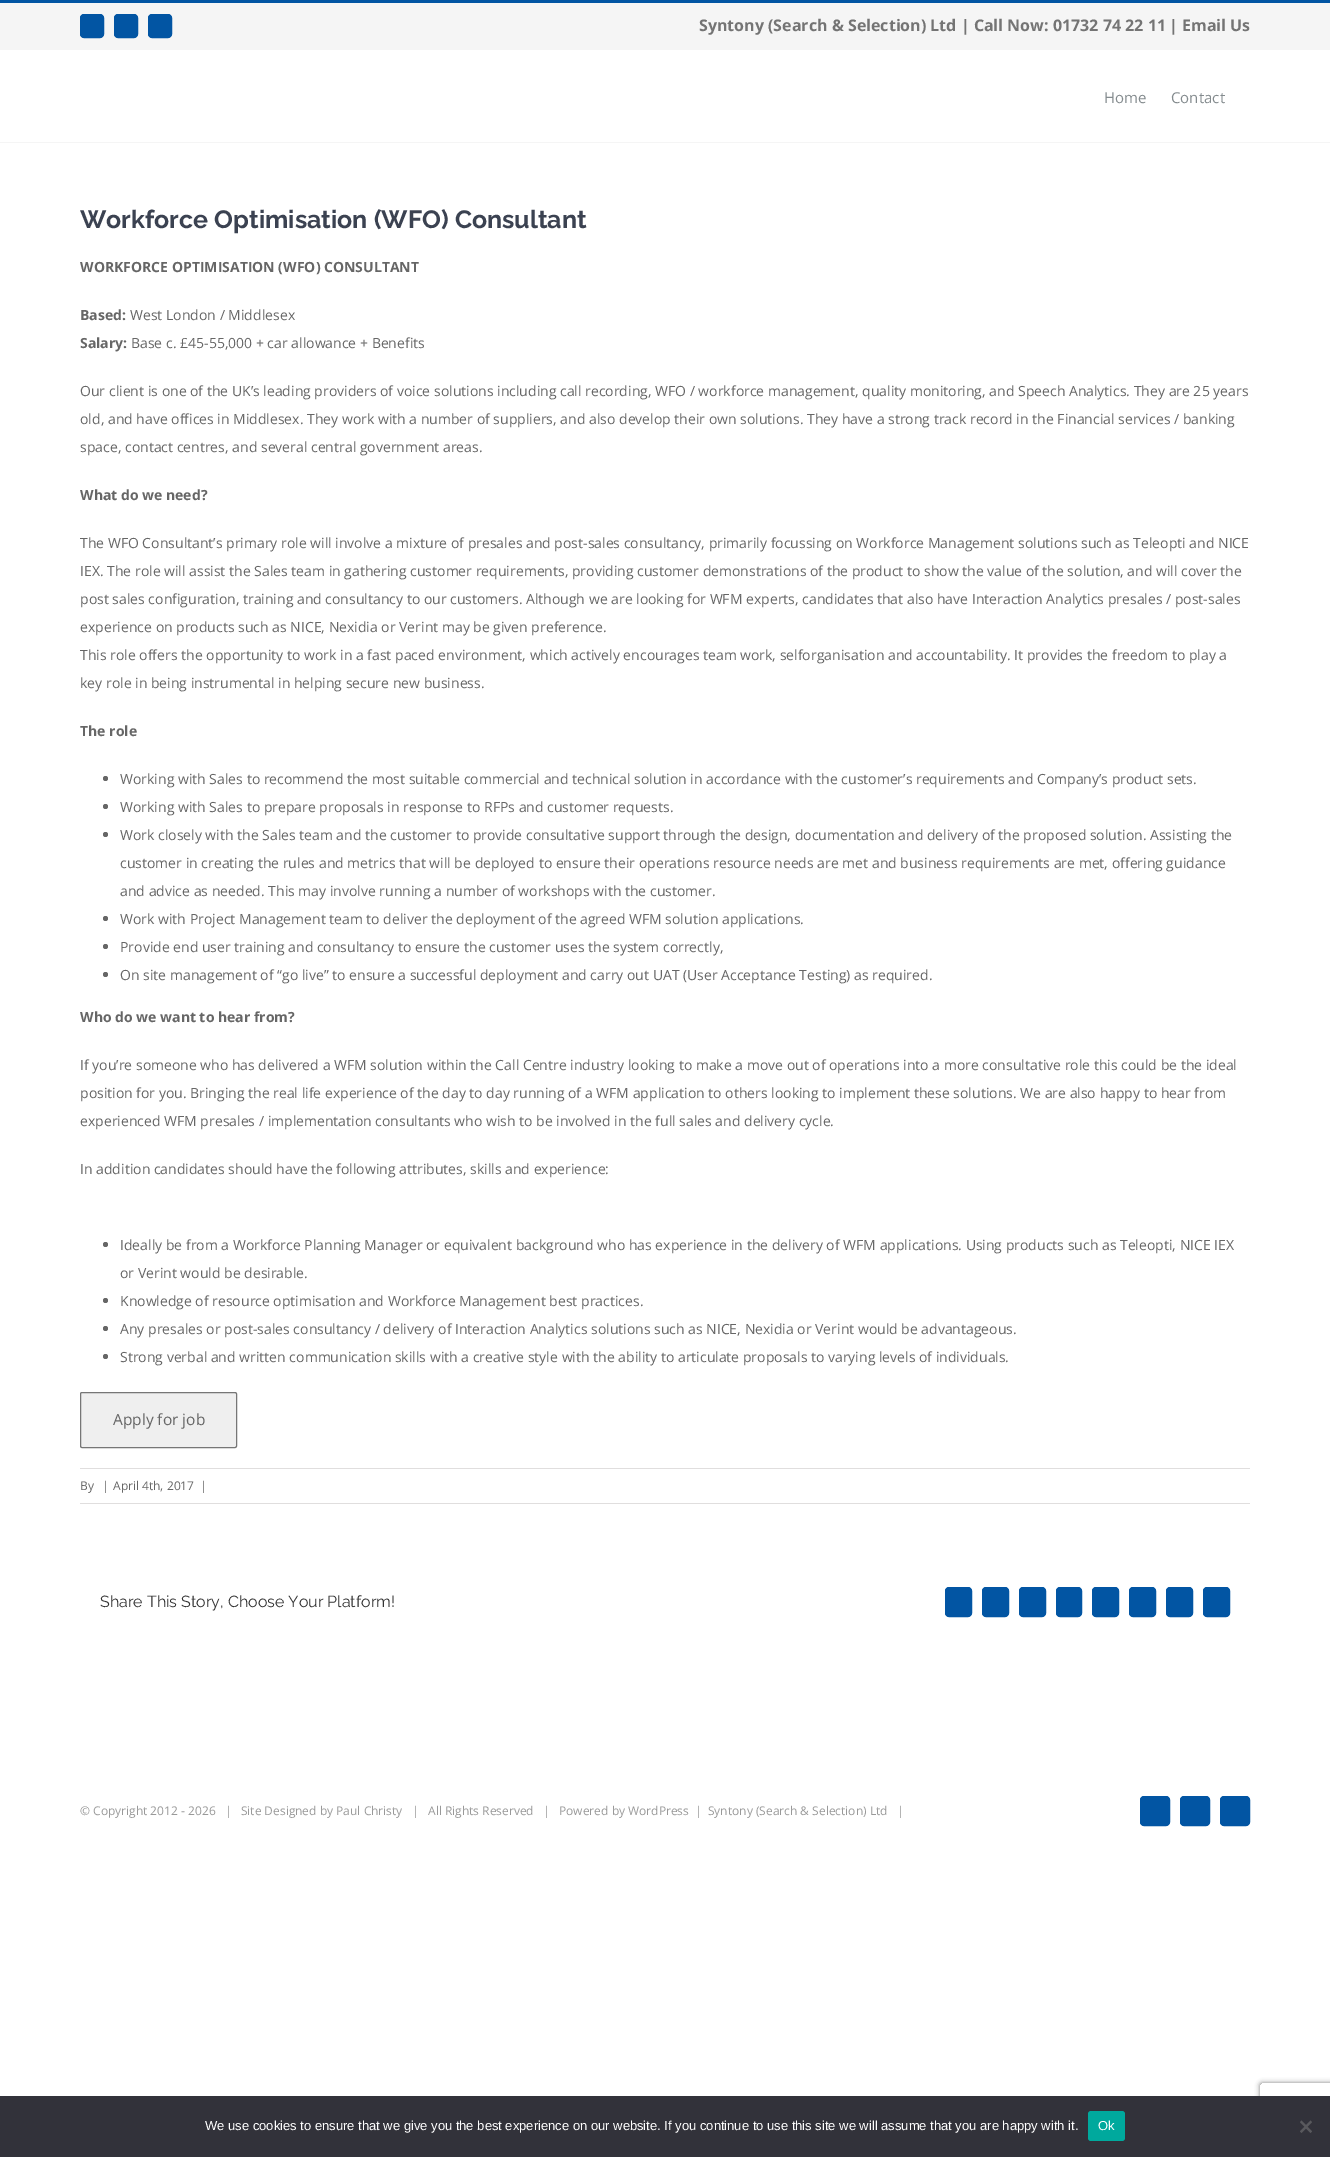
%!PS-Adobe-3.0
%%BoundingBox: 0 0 1330 2157
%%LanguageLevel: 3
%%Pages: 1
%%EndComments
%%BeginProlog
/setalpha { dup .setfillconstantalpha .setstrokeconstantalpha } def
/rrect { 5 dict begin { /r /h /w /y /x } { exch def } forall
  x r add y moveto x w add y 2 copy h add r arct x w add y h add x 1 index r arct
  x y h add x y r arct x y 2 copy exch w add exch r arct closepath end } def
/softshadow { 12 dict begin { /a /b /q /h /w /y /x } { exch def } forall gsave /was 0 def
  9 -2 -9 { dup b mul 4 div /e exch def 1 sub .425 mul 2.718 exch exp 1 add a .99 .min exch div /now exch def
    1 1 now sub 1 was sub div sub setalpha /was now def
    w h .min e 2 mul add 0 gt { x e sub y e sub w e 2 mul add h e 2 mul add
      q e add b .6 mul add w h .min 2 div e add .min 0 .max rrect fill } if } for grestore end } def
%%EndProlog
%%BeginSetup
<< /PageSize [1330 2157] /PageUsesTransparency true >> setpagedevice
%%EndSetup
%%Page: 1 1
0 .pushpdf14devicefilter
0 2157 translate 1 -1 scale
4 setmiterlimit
1 setgray
0 0 1330 2157 rectfill
0.961 setgray
0 3 1330 47 rectfill
0.008 0.333 0.639 setrgbcolor
0 0 1330 3 rectfill
80.5 14.5 23 23 3.5 rrect gsave fill grestore
stroke
114.5 14.5 23 23 3.5 rrect gsave fill grestore
stroke
148.5 14.5 23 23 3.5 rrect gsave fill grestore
stroke
0.961 setgray
0 142 1330 1 rectfill
0.4 setgray
newpath 105.5 778.5 2.5 0 360 arc closepath fill
newpath 105.5 806.5 2.5 0 360 arc closepath fill
newpath 105.5 834.5 2.5 0 360 arc closepath fill
newpath 105.5 918.5 2.5 0 360 arc closepath fill
newpath 105.5 946.5 2.5 0 360 arc closepath fill
newpath 105.5 974.5 2.5 0 360 arc closepath fill
newpath 105.5 1244.5 2.5 0 360 arc closepath fill
newpath 105.5 1300.5 2.5 0 360 arc closepath fill
newpath 105.5 1328.5 2.5 0 360 arc closepath fill
newpath 105.5 1356.5 2.5 0 360 arc closepath fill
0.937 setgray
80.5 1392.5 156 55 1.5 rrect gsave fill grestore
0.463 setgray
stroke
0.878 0.871 0.871 setrgbcolor
80 1468 1170 1 rectfill
80 1503 1170 1 rectfill
0.008 0.333 0.639 setrgbcolor
945.5 1587.5 26 29 3.5 rrect gsave fill grestore
stroke
982.5 1587.5 26 29 3.5 rrect gsave fill grestore
stroke
1019.5 1587.5 26 29 3.5 rrect gsave fill grestore
stroke
1056.5 1587.5 25 29 3.5 rrect gsave fill grestore
stroke
1092.5 1587.5 26 29 3.5 rrect gsave fill grestore
stroke
1129.5 1587.5 26 29 3.5 rrect gsave fill grestore
stroke
1166.5 1587.5 26 29 3.5 rrect gsave fill grestore
stroke
1203.5 1587.5 26 29 3.5 rrect gsave fill grestore
stroke
1140.5 1796.5 29 29 3.5 rrect gsave fill grestore
stroke
1180.5 1796.5 29 29 3.5 rrect gsave fill grestore
stroke
1220.5 1796.5 29 29 3.5 rrect gsave fill grestore
stroke
gsave
newpath 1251 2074 moveto 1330 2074 lineto 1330 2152 lineto 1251 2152 lineto closepath 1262 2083 moveto 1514 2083 lineto 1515 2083 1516 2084 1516 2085 curveto 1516 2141 lineto 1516 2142 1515 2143 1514 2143 curveto 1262 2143 lineto 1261 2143 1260 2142 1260 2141 curveto 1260 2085 lineto 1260 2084 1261 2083 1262 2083 curveto closepath eoclip newpath
0.502 setgray
1260 2083 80 60 2 2.5 1 softshadow
grestore
0.196 0.196 0.227 setrgbcolor
0 2096 1330 61 rectfill
0 0.663 0.616 setrgbcolor
1088 2111 37 30 3 rrect fill
0.349 0.349 0.365 setrgbcolor
newpath 1310.5 2120.5 moveto 1312 2122 lineto 1301.5 2133 lineto 1300 2131.5 lineto closepath fill
newpath 1300 2122 moveto 1301.5 2120.5 lineto 1312 2131.5 lineto 1310.5 2133 lineto closepath fill
/OpenSans-Bold [16 0 0 -16 0 0] selectfont
0.455 setgray
699 31 moveto (Syntony \(Search & Selection\) Ltd | Call Now: 01732 74 22 11) show
1169 31 moveto (| Email Us) show
/OpenSans-Regular [15 0 0 -15 0 0] selectfont
0.518 0.545 0.557 setrgbcolor
1104 103 moveto (Home) show
1171 103 moveto (Contact) show
/Raleway-Bold [25 0 0 -25 0 0] selectfont
0.231 0.259 0.318 setrgbcolor
80 228 moveto (Workforce Optimisation \(WFO\) Consultant) show
/OpenSans-Bold [14 0 0 -14 0 0] selectfont
0.4 setgray
80 272 moveto (WORKFORCE OPTIMISATION \(WFO\) CONSULTANT) show
80 320 moveto (Based:) show
/OpenSans-Regular [14 0 0 -14 0 0] selectfont
130 320 moveto (West London / Middlesex) show
/OpenSans-Bold [14 0 0 -14 0 0] selectfont
80 348 moveto (Salary:) show
/OpenSans-Regular [14 0 0 -14 0 0] selectfont
131 348 moveto (Base c. £45-55,000 + car allowance + Benefits) show
80 396 moveto (Our client is one of the UK’s leading providers of voice solutions including call recording, WFO / workforce management, quality monitoring, and Speech Analytics. They are 25 years) show
80 424 moveto (old, and have offices in Middlesex. They work with a number of suppliers, and also develop their own solutions. They have a strong track record in the Financial services / banking) show
80 452 moveto (space, contact centres, and several central government areas.) show
/OpenSans-Bold [14 0 0 -14 0 0] selectfont
80 500 moveto (What do we need?) show
/OpenSans-Regular [14 0 0 -14 0 0] selectfont
80 548 moveto (The WFO Consultant’s primary role will involve a mixture of presales and post-sales consultancy, primarily focussing on Workforce Management solutions such as Teleopti and NICE) show
80 576 moveto (IEX. The role will assist the Sales team in gathering customer requirements, providing customer demonstrations of the product to show the value of the solution, and will cover the) show
80 604 moveto (post sales configuration, training and consultancy to our customers. Although we are looking for WFM experts, candidates that also have Interaction Analytics presales / post-sales) show
80 632 moveto (experience on products such as NICE, Nexidia or Verint may be given preference.) show
80 660 moveto (This role offers the opportunity to work in a fast paced environment, which actively encourages team work, selforganisation and accountability. It provides the freedom to play a) show
80 688 moveto (key role in being instrumental in helping secure new business.) show
/OpenSans-Bold [14 0 0 -14 0 0] selectfont
80 736 moveto (The role) show
/OpenSans-Regular [14 0 0 -14 0 0] selectfont
120 784 moveto (Working with Sales to recommend the most suitable commercial and technical solution in accordance with the customer’s requirements and Company’s product sets.) show
120 812 moveto (Working with Sales to prepare proposals in response to RFPs and customer requests.) show
120 840 moveto (Work closely with the Sales team and the customer to provide consultative support through the design, documentation and delivery of the proposed solution. Assisting the) show
120 868 moveto (customer in creating the rules and metrics that will be deployed to ensure their operations resource needs are met and business requirements are met, offering guidance) show
120 896 moveto (and advice as needed. This may involve running a number of workshops with the customer.) show
120 924 moveto (Work with Project Management team to deliver the deployment of the agreed WFM solution applications.) show
120 952 moveto (Provide end user training and consultancy to ensure the customer uses the system correctly,) show
120 980 moveto (On site management of “go live” to ensure a successful deployment and carry out UAT \(User Acceptance Testing\) as required.) show
/OpenSans-Bold [14 0 0 -14 0 0] selectfont
80 1022 moveto (Who do we want to hear from?) show
/OpenSans-Regular [14 0 0 -14 0 0] selectfont
80 1070 moveto (If you’re someone who has delivered a WFM solution within the Call Centre industry looking to make a move out of operations into a more consultative role this could be the ideal) show
80 1098 moveto (position for you. Bringing the real life experience of the day to day running of a WFM application to others looking to implement these solutions. We are also happy to hear from) show
80 1126 moveto (experienced WFM presales / implementation consultants who wish to be involved in the full sales and delivery cycle.) show
80 1174 moveto (In addition candidates should have the following attributes, skills and experience:) show
120 1250 moveto (Ideally be from a Workforce Planning Manager or equivalent background who has experience in the delivery of WFM applications. Using products such as Teleopti, NICE IEX) show
120 1278 moveto (or Verint would be desirable.) show
120 1306 moveto (Knowledge of resource optimisation and Workforce Management best practices.) show
120 1334 moveto (Any presales or post-sales consultancy / delivery of Interaction Analytics solutions such as NICE, Nexidia or Verint would be advantageous.) show
120 1362 moveto (Strong verbal and written communication skills with a creative style with the ability to articulate proposals to varying levels of individuals.) show
/OpenSans-Regular [15.5 0 0 -15.5 0 0] selectfont
113 1425 moveto (Apply for job) show
/OpenSans-Regular [12 0 0 -12 0 0] selectfont
80 1490 moveto (By) show
102 1490 moveto (|) show
113 1490 moveto (April 4th, 2017) show
200 1490 moveto (|) show
/Raleway-Regular [16 0 0 -16 0 0] selectfont
0.2 setgray
100 1607 moveto (Share This Story, Choose Your Platform!) show
/OpenSans-Regular [12 0 0 -12 0 0] selectfont
0.6 setgray
80 1815 moveto (© Copyright 2012 - 2026   |   Site Designed by Paul Christy) show
412 1815 moveto (|   All Rights Reserved   |   Powered by WordPress) show
695 1815 moveto (|  Syntony \(Search & Selection\) Ltd   |) show
/LiberationSans-Regular [13 0 0 -13 0 0] selectfont
1 setgray
205 2130 moveto (We use cookies to ensure that we give you the best experience on our website. If you continue to use this site we will assume that you are happy with it.) show
1098 2130 moveto (Ok) show
.poppdf14devicefilter showpage
%%EOF
